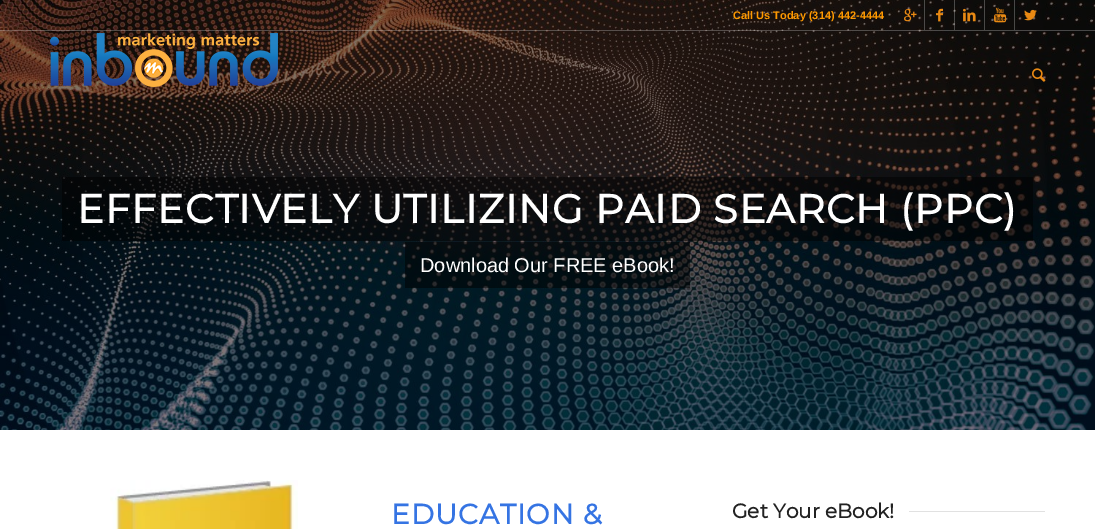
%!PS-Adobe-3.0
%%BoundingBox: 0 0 1095 529
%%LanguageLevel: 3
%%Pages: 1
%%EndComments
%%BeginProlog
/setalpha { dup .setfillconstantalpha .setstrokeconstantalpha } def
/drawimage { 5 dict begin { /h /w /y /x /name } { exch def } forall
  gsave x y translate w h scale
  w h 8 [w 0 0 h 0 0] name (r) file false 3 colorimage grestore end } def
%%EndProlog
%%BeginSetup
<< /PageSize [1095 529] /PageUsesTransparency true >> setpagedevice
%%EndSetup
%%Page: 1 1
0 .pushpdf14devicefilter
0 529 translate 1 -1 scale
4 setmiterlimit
1 setgray
0 0 1095 529 rectfill
(images/8.raw) 0 0 1095 430 drawimage
0.25 setalpha
0 30 1095 1 rectfill
924 0 1 30 rectfill
1 setalpha
(images/1.raw) 904 8 13 14 drawimage
0.25 setalpha
954 0 1 30 rectfill
1 setalpha
(images/2.raw) 936 8 7 14 drawimage
0.25 setalpha
984 0 1 30 rectfill
1 setalpha
(images/3.raw) 963 8 13 14 drawimage
0.25 setalpha
1014 0 1 30 rectfill
1 setalpha
(images/4.raw) 994 7 13 16 drawimage
(images/5.raw) 1024 9 13 12 drawimage
(images/6.raw) 50 33 228 54 drawimage
(images/7.raw) 1032 68 14 14 drawimage
0.5 setalpha
0 setgray
62 177 971 64 rectfill
405 242 285 46 rectfill
1 setalpha
(images/9.raw) 110 480 188 49 drawimage
0.882 setgray
909 511 136 1 rectfill
/LiberationSans-Bold [11 0 0 -11 0 0] selectfont
1 0.6 0 setrgbcolor
733 19 moveto (Call Us Today \(314\) 442-4444) show
/Montserrat-Bold [40 0 0 -40 0 0] selectfont
1 setgray
77 223 moveto 1 0 (EFFECTIVELY UTILIZING PAID SEARCH \(PPC\)) ashow
/LiberationSans-Regular [20 0 0 -20 0 0] selectfont
420 272 moveto (Download Our FREE eBook!) show
/Montserrat-Bold [28 0 0 -28 0 0] selectfont
0.208 0.455 0.89 setrgbcolor
391 524 moveto 1 0 (EDUCATION &) ashow
/Montserrat-Bold [20 0 0 -20 0 0] selectfont
0.133 setgray
732 518 moveto (Get Your eBook!) show
.poppdf14devicefilter showpage
%%EOF
